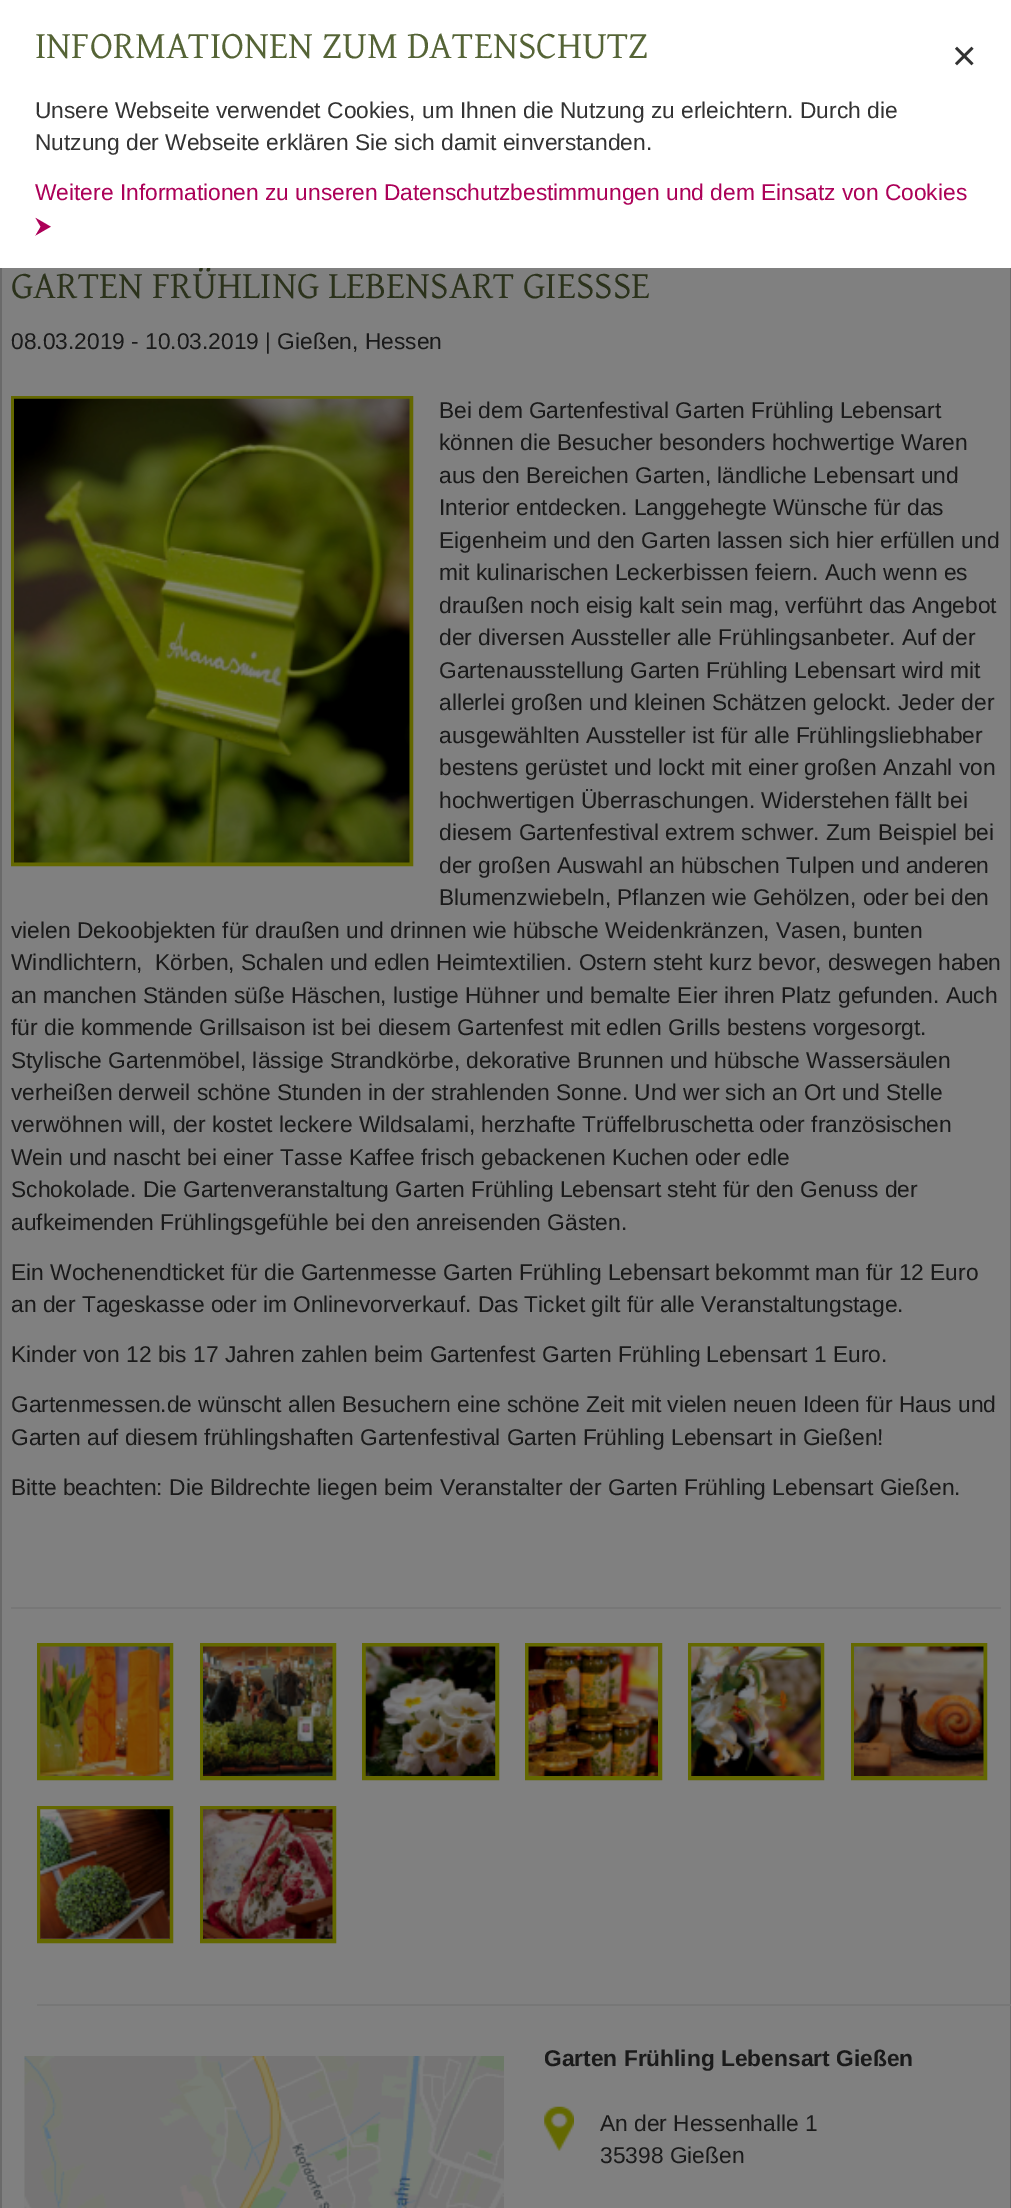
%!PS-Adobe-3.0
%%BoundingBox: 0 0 1011 2208
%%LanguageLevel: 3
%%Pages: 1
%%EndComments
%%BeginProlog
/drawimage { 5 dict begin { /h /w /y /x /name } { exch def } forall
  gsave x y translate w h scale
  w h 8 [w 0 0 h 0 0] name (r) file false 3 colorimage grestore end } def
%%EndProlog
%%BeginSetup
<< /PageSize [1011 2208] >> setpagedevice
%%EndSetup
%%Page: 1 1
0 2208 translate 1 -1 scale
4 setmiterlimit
0.502 setgray
0 0 1011 2208 rectfill
0.416 setgray
1010 268 1 1940 rectfill
0 268 2 1940 rectfill
0.392 0.408 0 setrgbcolor
4 setlinewidth
13 398 398 466 rectstroke
(images/1.raw) 14 398 396 465 drawimage
0.467 setgray
11 1607 990 2 rectfill
0.392 0.408 0 setrgbcolor
39 1645 132 133 rectstroke
(images/2.raw) 40 1646 130 130 drawimage
202 1645 132 133 rectstroke
(images/3.raw) 203 1646 130 130 drawimage
364 1645 133 133 rectstroke
(images/4.raw) 365 1646 131 130 drawimage
527 1645 133 133 rectstroke
(images/5.raw) 528 1646 130 130 drawimage
690 1645 132 133 rectstroke
(images/6.raw) 691 1646 130 130 drawimage
853 1645 132 133 rectstroke
(images/7.raw) 854 1646 130 130 drawimage
39 1808 132 133 rectstroke
(images/8.raw) 40 1809 130 130 drawimage
202 1808 132 133 rectstroke
(images/9.raw) 203 1809 130 130 drawimage
0.467 setgray
37 2004 974 2 rectfill
(images/10.raw) 24 2056 480 152 drawimage
(images/11.raw) 544 2106 30 45 drawimage
/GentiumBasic-Regular [38.5 0 0 -38.5 0 0] selectfont
0.169 0.196 0.106 setrgbcolor
11 298 moveto (GARTEN FRÜHLING LEBENSART GIESSSE) show
1 setgray
0 0 1011 268 rectfill
/FreeSans-Regular [22.75 0 0 -22.75 0 0] selectfont
0.675 0 0.345 setrgbcolor
35 233 moveto (⮞) show
/LiberationSans-Regular [22.75 0 0 -22.75 0 0] selectfont
35 200 moveto (Weitere Informationen zu unseren Datenschutzbestimmungen und dem Einsatz von Cookies) show
0.2 setgray
35 150 moveto (Nutzung der Webseite erklären Sie sich damit einverstanden.) show
35 118 moveto (Unsere Webseite verwendet Cookies, um Ihnen die Nutzung zu erleichtern. Durch die) show
/GentiumBasic-Regular [38.5 0 0 -38.5 0 0] selectfont
0.333 0.392 0.212 setrgbcolor
35 58 moveto (INFORMATIONEN ZUM DATENSCHUTZ) show
/LiberationSans-Regular [42 0 0 -42 0 0] selectfont
0.2 setgray
952 70 moveto (×) show
/LiberationSans-Regular [22.75 0 0 -22.75 0 0] selectfont
0.102 setgray
11 349 moveto (08.03.2019 - 10.03.2019 | Gießen, Hessen) show
439 418 moveto (Bei dem Gartenfestival Garten Frühling Lebensart) show
439 450 moveto (können die Besucher besonders hochwertige Waren) show
439 483 moveto (aus den Bereichen Garten, ländliche Lebensart und) show
439 515 moveto (Interior entdecken. Langgehegte Wünsche für das) show
439 548 moveto (Eigenheim und den Garten lassen sich hier erfüllen und) show
439 580 moveto (mit kulinarischen Leckerbissen feiern. Auch wenn es) show
439 613 moveto (draußen noch eisig kalt sein mag, verführt das Angebot) show
439 645 moveto (der diversen Aussteller alle Frühlingsanbeter. Auf der) show
439 678 moveto (Gartenausstellung Garten Frühling Lebensart wird mit) show
439 710 moveto (allerlei großen und kleinen Schätzen gelockt. Jeder der) show
439 743 moveto (ausgewählten Aussteller ist für alle Frühlingsliebhaber) show
439 775 moveto (bestens gerüstet und lockt mit einer großen Anzahl von) show
439 808 moveto (hochwertigen Überraschungen. Widerstehen fällt bei) show
439 840 moveto (diesem Gartenfestival extrem schwer. Zum Beispiel bei) show
439 873 moveto (der großen Auswahl an hübschen Tulpen und anderen) show
439 905 moveto (Blumenzwiebeln, Pflanzen wie Gehölzen, oder bei den) show
11 938 moveto (vielen Dekoobjekten für draußen und drinnen wie hübsche Weidenkränzen, Vasen, bunten) show
11 970 moveto (Windlichtern,  Körben, Schalen und edlen Heimtextilien. Ostern steht kurz bevor, deswegen haben) show
11 1003 moveto (an manchen Ständen süße Häschen, lustige Hühner und bemalte Eier ihren Platz gefunden. Auch) show
11 1035 moveto (für die kommende Grillsaison ist bei diesem Gartenfest mit edlen Grills bestens vorgesorgt.) show
11 1068 moveto (Stylische Gartenmöbel, lässige Strandkörbe, dekorative Brunnen und hübsche Wassersäulen) show
11 1100 moveto (verheißen derweil schöne Stunden in der strahlenden Sonne. Und wer sich an Ort und Stelle) show
11 1132 moveto (verwöhnen will, der kostet leckere Wildsalami, herzhafte Trüffelbruschetta oder französischen) show
11 1165 moveto (Wein und nascht bei einer Tasse Kaffee frisch gebackenen Kuchen oder edle) show
11 1197 moveto (Schokolade. Die Gartenveranstaltung Garten Frühling Lebensart steht für den Genuss der) show
11 1230 moveto (aufkeimenden Frühlingsgefühle bei den anreisenden Gästen.) show
11 1280 moveto (Ein Wochenendticket für die Gartenmesse Garten Frühling Lebensart bekommt man für 12 Euro) show
11 1312 moveto (an der Tageskasse oder im Onlinevorverkauf. Das Ticket gilt für alle Veranstaltungstage.) show
11 1362 moveto (Kinder von 12 bis 17 Jahren zahlen beim Gartenfest Garten Frühling Lebensart 1 Euro.) show
11 1412 moveto (Gartenmessen.de wünscht allen Besuchern eine schöne Zeit mit vielen neuen Ideen für Haus und) show
11 1445 moveto (Garten auf diesem frühlingshaften Gartenfestival Garten Frühling Lebensart in Gießen!) show
11 1495 moveto (Bitte beachten: Die Bildrechte liegen beim Veranstalter der Garten Frühling Lebensart Gießen.) show
/LiberationSans-Bold [22.75 0 0 -22.75 0 0] selectfont
544 2066 moveto (Garten Frühling Lebensart Gießen) show
/LiberationSans-Regular [22.75 0 0 -22.75 0 0] selectfont
600 2131 moveto (An der Hessenhalle 1) show
600 2163 moveto (35398 Gießen) show
showpage
%%EOF
